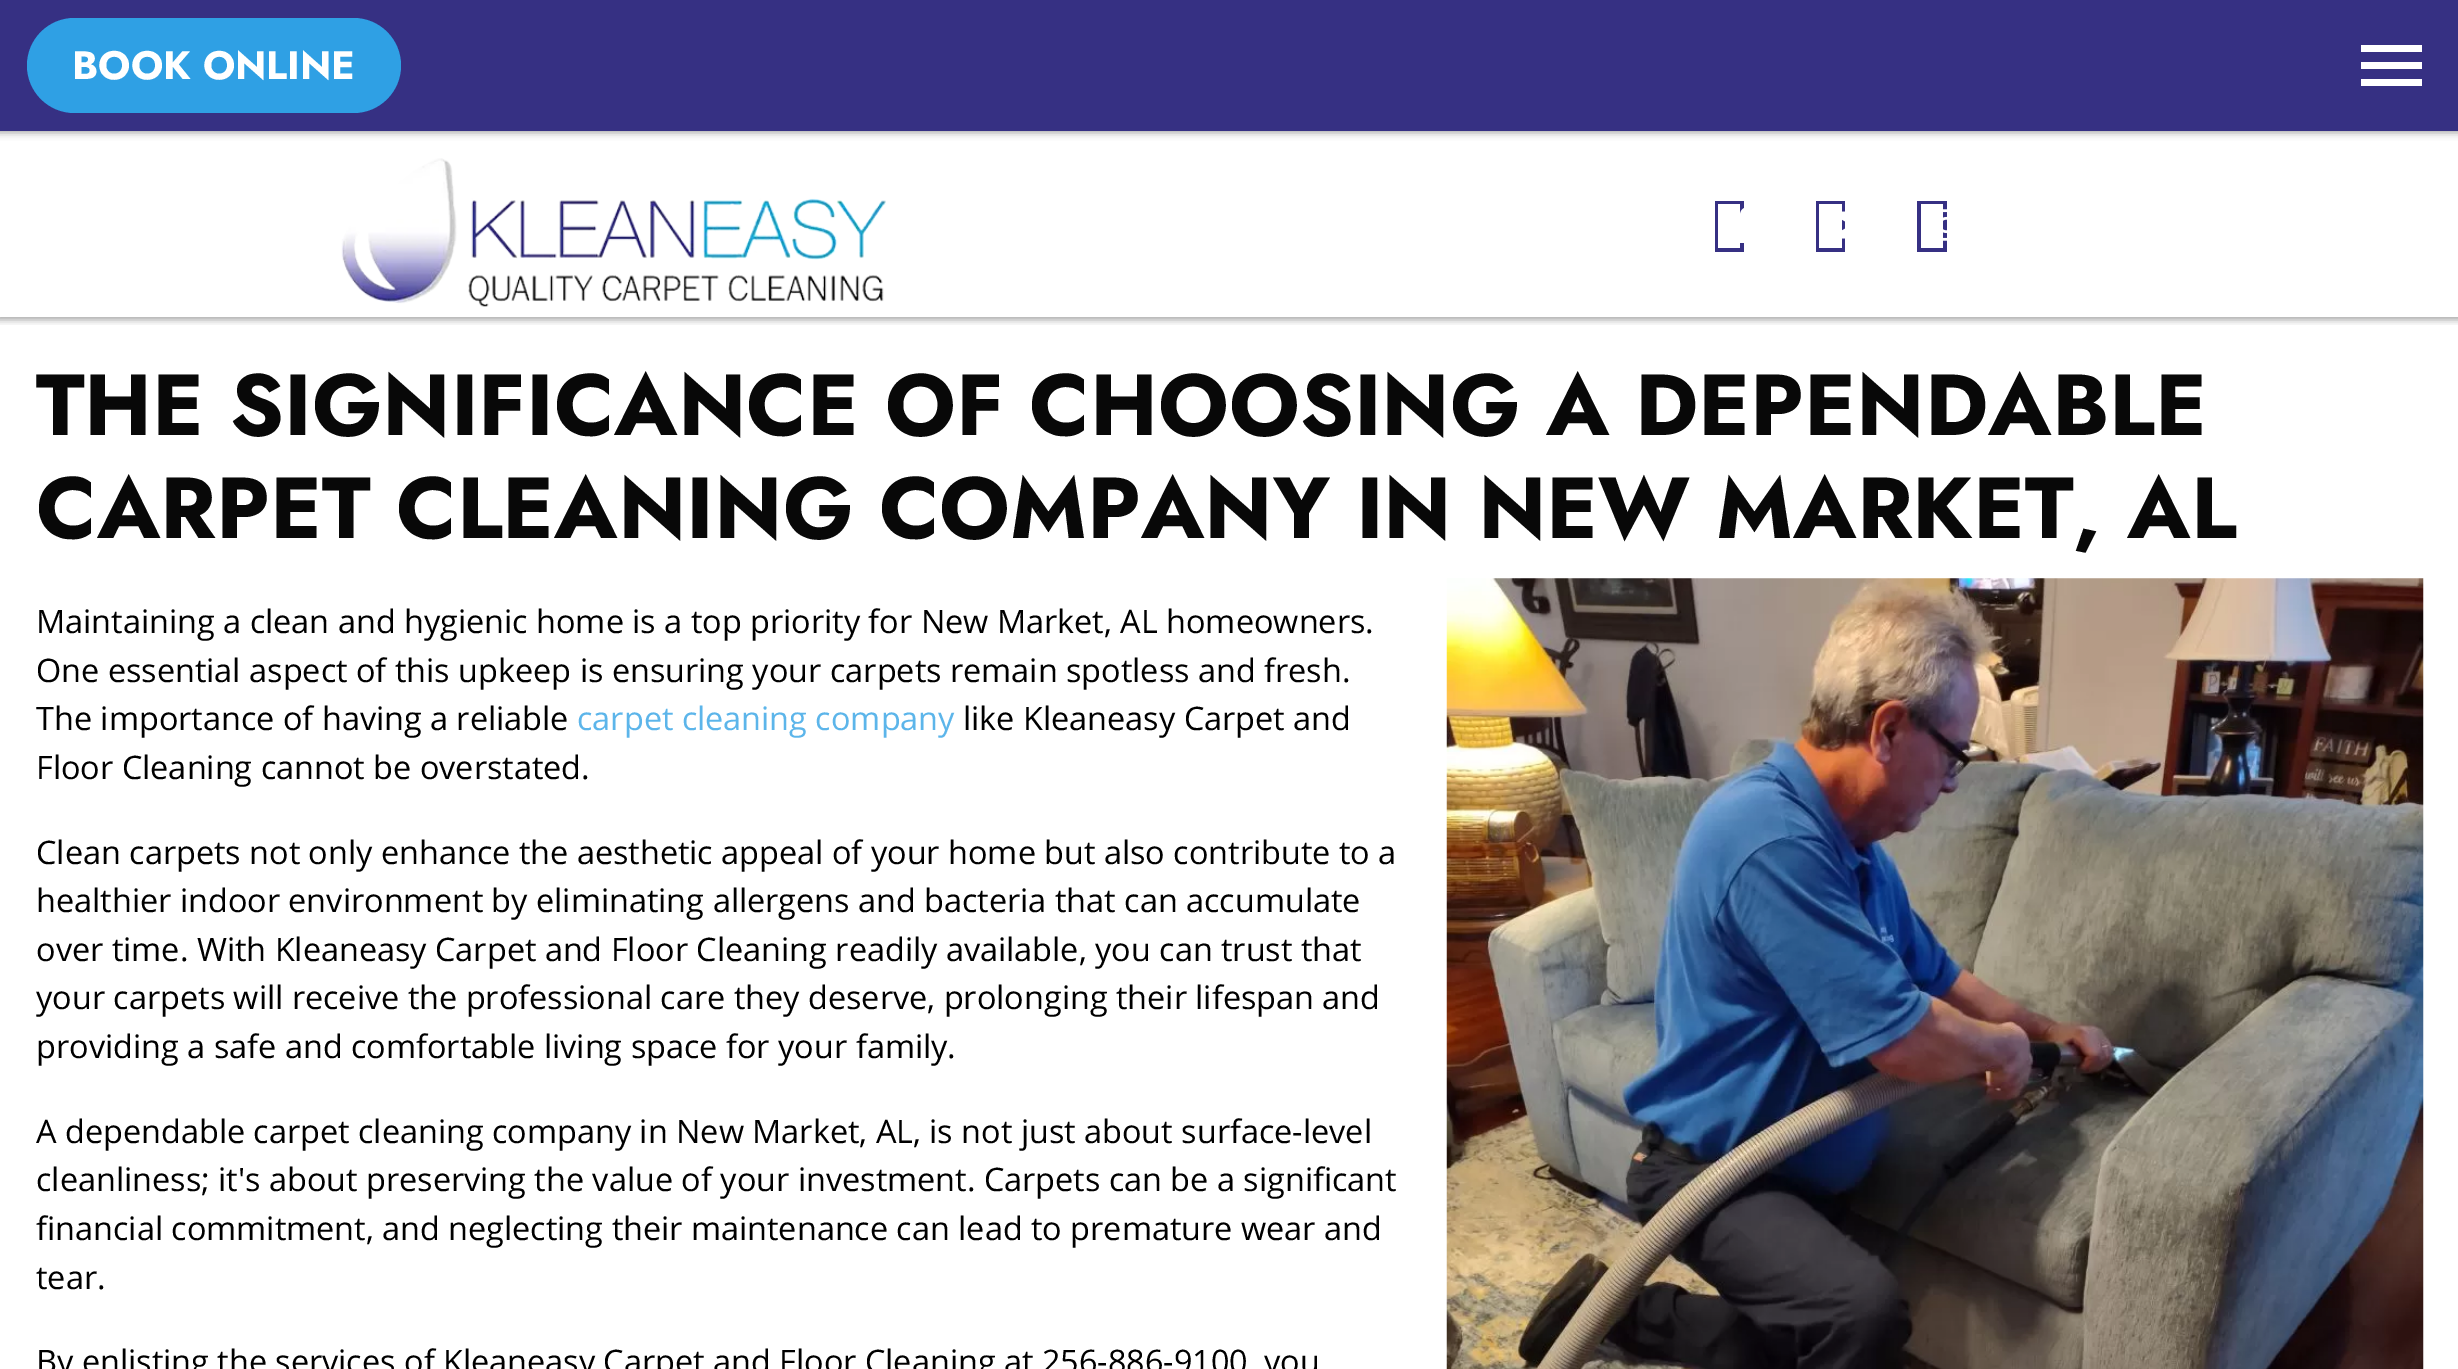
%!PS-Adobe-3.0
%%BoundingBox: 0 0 2458 1369
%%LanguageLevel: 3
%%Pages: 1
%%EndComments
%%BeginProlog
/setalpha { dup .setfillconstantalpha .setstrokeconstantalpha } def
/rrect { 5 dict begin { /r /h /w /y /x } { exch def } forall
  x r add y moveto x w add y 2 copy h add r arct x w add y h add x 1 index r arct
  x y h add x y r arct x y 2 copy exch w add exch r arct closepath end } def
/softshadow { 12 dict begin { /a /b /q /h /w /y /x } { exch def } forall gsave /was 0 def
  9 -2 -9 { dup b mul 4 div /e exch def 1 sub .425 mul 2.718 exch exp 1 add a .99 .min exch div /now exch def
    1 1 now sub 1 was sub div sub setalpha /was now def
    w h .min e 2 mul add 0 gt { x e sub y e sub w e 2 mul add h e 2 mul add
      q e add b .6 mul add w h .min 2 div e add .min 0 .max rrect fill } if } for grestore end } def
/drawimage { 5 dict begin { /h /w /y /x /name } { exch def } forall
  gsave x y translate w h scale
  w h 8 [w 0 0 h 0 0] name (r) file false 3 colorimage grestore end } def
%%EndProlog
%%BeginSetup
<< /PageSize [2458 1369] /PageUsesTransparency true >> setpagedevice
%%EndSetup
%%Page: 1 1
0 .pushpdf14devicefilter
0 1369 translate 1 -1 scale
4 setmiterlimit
1 setgray
0 0 2458 1369 rectfill
gsave
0 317 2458 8 rectclip
0 setgray
-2 -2 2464 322 0 3.5 0.33 softshadow
grestore
0 setgray
-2 -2 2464 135 0 3.5 0.33 softshadow
0.212 0.188 0.514 setrgbcolor
0 0 2458 131 rectfill
0.184 0.627 0.894 setrgbcolor
27 18 374 95 47.5 rrect fill
1 setgray
newpath 2361 86 moveto 2422 86 lineto 2422 79 lineto 2361 79 lineto closepath 2361 69 moveto 2422 69 lineto 2422 62 lineto 2361 62 lineto closepath 2361 45 moveto 2361 52 lineto 2422 52 lineto 2422 45 lineto closepath fill
(images/1.raw) 341 158 545 149 drawimage
0.212 0.188 0.514 setrgbcolor
newpath 1715 252 moveto 1715 201 lineto 1744 201 lineto 1744 252 lineto closepath 1718 248 moveto 1740 248 lineto 1740 204 lineto 1718 204 lineto closepath fill
(images/2.raw) 1740 208 4 35 drawimage
newpath 1816 252 moveto 1816 201 lineto 1845 201 lineto 1845 252 lineto closepath 1819 248 moveto 1842 248 lineto 1842 204 lineto 1819 204 lineto closepath fill
(images/3.raw) 1842 211 3 28 drawimage
newpath 1917 252 moveto 1917 201 lineto 1947 201 lineto 1947 252 lineto closepath 1921 248 moveto 1943 248 lineto 1943 204 lineto 1921 204 lineto closepath fill
(images/4.raw) 1943 209 4 32 drawimage
(images/5.raw) 1446 578 978 791 drawimage
/Jost-Bold [39.5 0 0 -39.5 0 0] selectfont
1 setgray
72 79 moveto (BOOK ONLINE) show
/Jost-Bold [86.4 0 0 -86.4 0 0] selectfont
0.031 setgray
36 435 moveto -0.25 0 32 (THE SIGNIFICANCE OF CHOOSING A DEPENDABLE) widthshow
36 538 moveto -0.25 0 32 (CARPET CLEANING COMPANY IN NEW MARKET, AL) widthshow
/OpenSans-Regular [32.4 0 0 -32.4 0 0] selectfont
0 setgray
36 633 moveto (Maintaining a clean and hygienic home is a top priority for New Market, AL homeowners.) show
36 682 moveto (One essential aspect of this upkeep is ensuring your carpets remain spotless and fresh.) show
36 730 moveto (The importance of having a reliable) show
0.361 0.71 0.918 setrgbcolor
577 730 moveto (carpet cleaning company) show
0 setgray
963 730 moveto (like Kleaneasy Carpet and) show
36 779 moveto (Floor Cleaning cannot be overstated.) show
36 864 moveto (Clean carpets not only enhance the aesthetic appeal of your home but also contribute to a) show
36 912 moveto (healthier indoor environment by eliminating allergens and bacteria that can accumulate) show
36 961 moveto (over time. With Kleaneasy Carpet and Floor Cleaning readily available, you can trust that) show
36 1009 moveto (your carpets will receive the professional care they deserve, prolonging their lifespan and) show
36 1058 moveto (providing a safe and comfortable living space for your family.) show
36 1143 moveto (A dependable carpet cleaning company in New Market, AL, is not just about surface-level) show
36 1191 moveto (cleanliness; it's about preserving the value of your investment. Carpets can be a significant) show
36 1240 moveto (financial commitment, and neglecting their maintenance can lead to premature wear and) show
36 1289 moveto (tear.) show
36 1373 moveto (By enlisting the services of Kleaneasy Carpet and Floor Cleaning at 256-886-9100, you) show
.poppdf14devicefilter showpage
%%EOF
